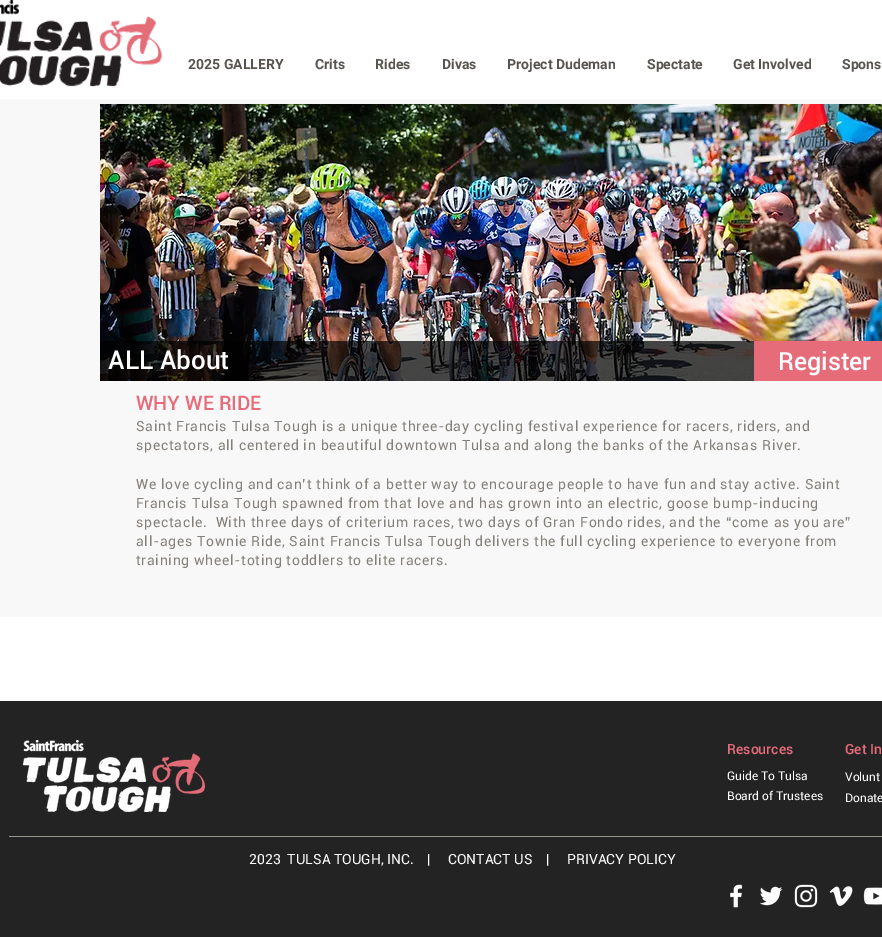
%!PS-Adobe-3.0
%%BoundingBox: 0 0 882 937
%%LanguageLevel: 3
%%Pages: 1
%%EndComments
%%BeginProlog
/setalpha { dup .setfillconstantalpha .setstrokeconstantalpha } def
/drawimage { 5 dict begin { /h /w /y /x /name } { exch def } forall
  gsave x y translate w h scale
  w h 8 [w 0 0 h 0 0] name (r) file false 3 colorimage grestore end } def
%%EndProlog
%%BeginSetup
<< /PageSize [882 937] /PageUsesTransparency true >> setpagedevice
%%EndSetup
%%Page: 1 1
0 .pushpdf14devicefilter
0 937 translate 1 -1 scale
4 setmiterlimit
0.973 setgray
0 0 882 937 rectfill
1 setgray
0 0 882 99 rectfill
(images/1.raw) 0 0 162 87 drawimage
(images/2.raw) 100 104 782 277 drawimage
0.7 setalpha
0 setgray
100 341 654 40 rectfill
1 setalpha
0.902 0.424 0.478 setrgbcolor
754 341 128 40 rectfill
1 setgray
0 617 882 84 rectfill
0.141 0.137 0.137 setrgbcolor
0 701 882 236 rectfill
(images/3.raw) 23 740 182 72 drawimage
(images/4.raw) 730 884 13 24 drawimage
(images/5.raw) 760 886 23 20 drawimage
(images/6.raw) 794 884 24 24 drawimage
(images/7.raw) 829 886 24 20 drawimage
(images/8.raw) 863 887 19 18 drawimage
0.596 0.584 0.557 setrgbcolor
9 836 873 1 rectfill
/Roboto-Bold [14 0 0 -14 0 0] selectfont
0.345 0.333 0.318 setrgbcolor
188 69 moveto (2025 GALLERY) show
315 69 moveto (Crits) show
375 69 moveto (Rides) show
442 69 moveto (Divas) show
507 69 moveto (Project Dudeman) show
647 69 moveto (Spectate) show
733 69 moveto (Get Involved) show
842 69 moveto (Spons) show
/Roboto-Medium [26 0 0 -26 0 0] selectfont
1 setgray
108 369 moveto (ALL About) show
/Roboto-Medium [25 0 0 -25 0 0] selectfont
778 370 moveto (Register) show
/Roboto-Medium [20 0 0 -20 0 0] selectfont
0.902 0.424 0.478 setrgbcolor
136 410 moveto (WHY WE RIDE) show
/Roboto-Regular [14 0 0 -14 0 0] selectfont
0.518 0.502 0.475 setrgbcolor
136 431 moveto 0.7 0 (Saint Francis Tulsa Tough is a unique three-day cycling festival experience for racers, riders, and) ashow
136 450 moveto 0.7 0 (spectators, all centered in beautiful downtown Tulsa and along the banks of the Arkansas River.) ashow
136 489 moveto 0.7 0 (We love cycling and can’t think of a better way to encourage people to have fun and stay active. Saint) ashow
136 508 moveto 0.7 0 (Francis Tulsa Tough spawned from that love and has grown into an electric, goose bump-inducing) ashow
136 527 moveto 0.7 0 (spectacle.  With three days of criterium races, two days of Gran Fondo rides, and the “come as you are”) ashow
136 546 moveto 0.7 0 (all-ages Townie Ride, Saint Francis Tulsa Tough delivers the full cycling experience to everyone from) ashow
136 565 moveto 0.7 0 (training wheel-toting toddlers to elite racers.) ashow
/Roboto-Medium [14 0 0 -14 0 0] selectfont
0.902 0.424 0.478 setrgbcolor
727 754 moveto (Resources) show
845 754 moveto (Get In) show
/Roboto-Regular [12 0 0 -12 0 0] selectfont
1 setgray
727 780 moveto (Guide To Tulsa) show
727 800 moveto (Board of Trustees) show
845 781 moveto (Volunt) show
845 802 moveto (Donate) show
/Roboto-Regular [14 0 0 -14 0 0] selectfont
249 864 moveto (2023  TULSA TOUGH, INC.) show
427 864 moveto (|) show
448 864 moveto (CONTACT US) show
546 864 moveto (|) show
567 864 moveto (PRIVACY POLICY) show
.poppdf14devicefilter showpage
%%EOF
